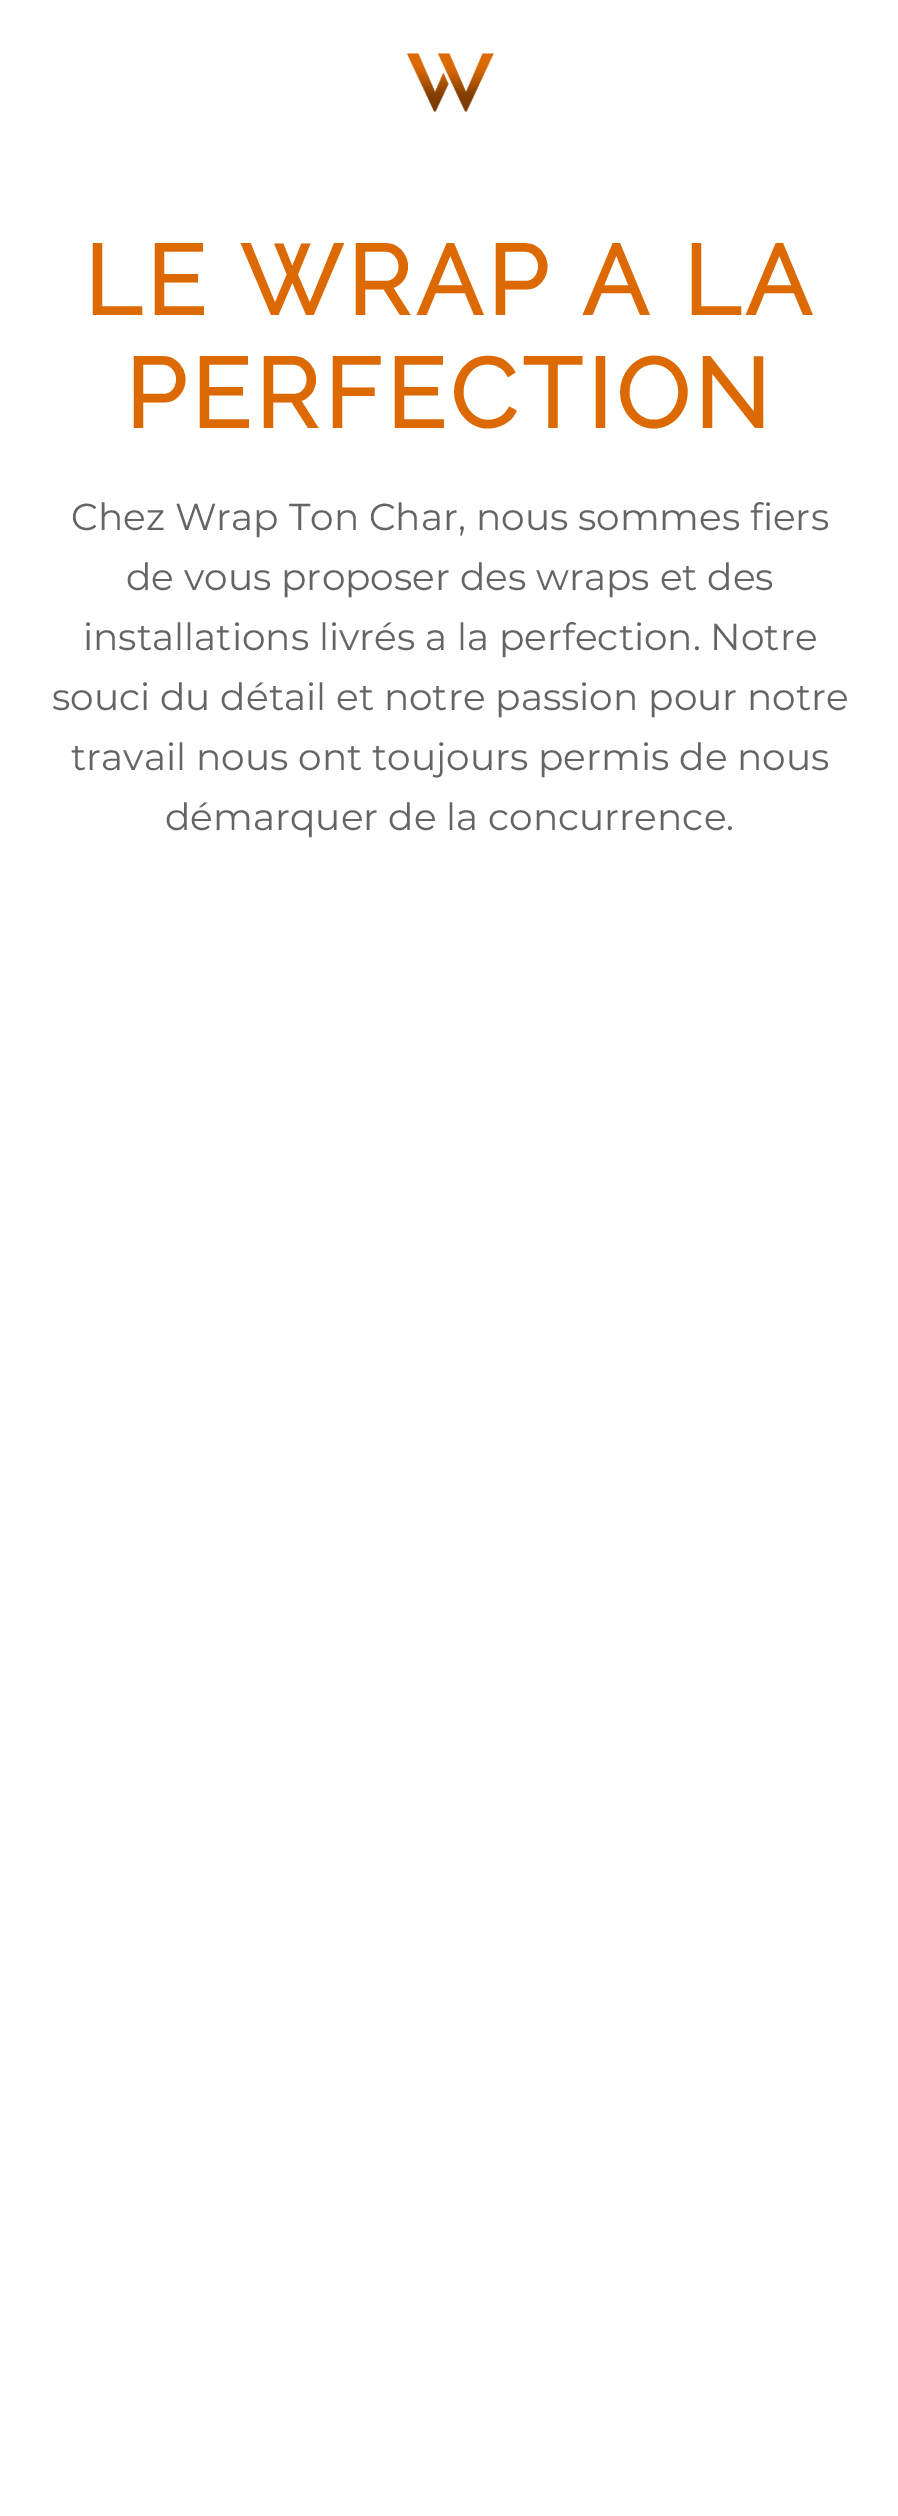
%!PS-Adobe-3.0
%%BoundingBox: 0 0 898 2516
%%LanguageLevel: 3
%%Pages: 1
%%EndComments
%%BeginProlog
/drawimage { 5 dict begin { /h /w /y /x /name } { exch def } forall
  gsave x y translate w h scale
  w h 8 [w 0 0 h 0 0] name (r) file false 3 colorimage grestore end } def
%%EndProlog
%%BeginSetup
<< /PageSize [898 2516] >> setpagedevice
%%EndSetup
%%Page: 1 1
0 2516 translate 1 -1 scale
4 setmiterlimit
1 setgray
0 0 898 2516 rectfill
(images/1.raw) 406 53 88 60 drawimage
/Raleway-Bold [97.5 0 0 -97.5 0 0] selectfont
0.863 0.412 0.008 setrgbcolor
84 315 moveto 5 0 (LE WRAP A LA) ashow
125 428 moveto 5 0 (PERFECTION) ashow
/Montserrat-Regular [37.5 0 0 -37.5 0 0] selectfont
0.392 setgray
71 530 moveto (Chez Wrap Ton Char, nous sommes fiers) show
126 590 moveto (de vous proposer des wraps et des) show
83 650 moveto (installations livrés a la perfection. Notre) show
52 710 moveto (souci du détail et notre passion pour notre) show
71 770 moveto (travail nous ont toujours permis de nous) show
165 830 moveto (démarquer de la concurrence.) show
showpage
%%EOF
